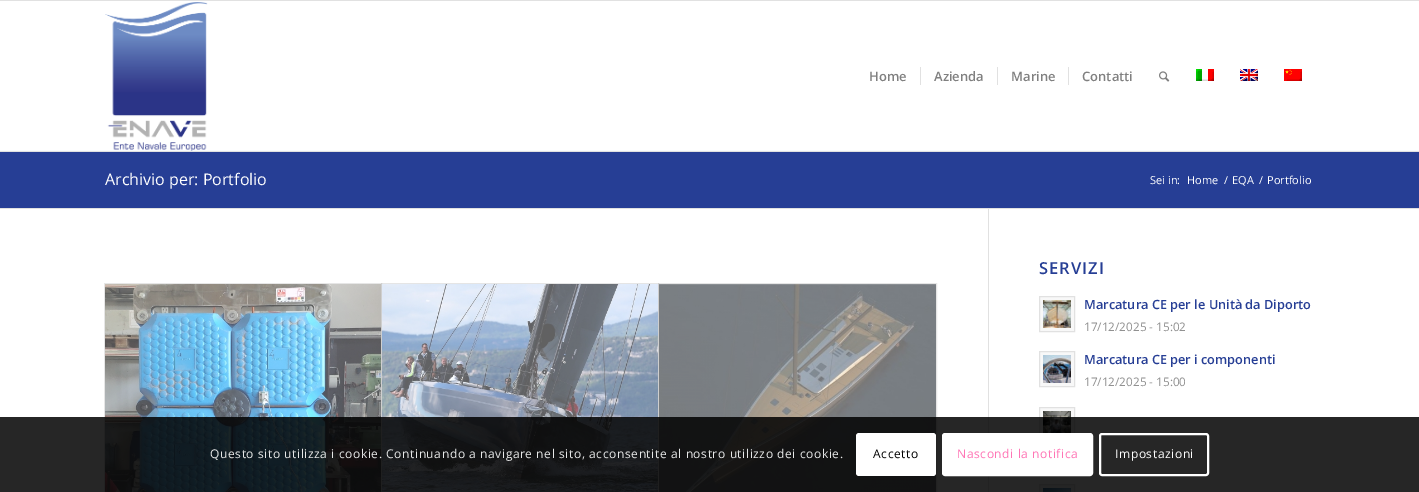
%!PS-Adobe-3.0
%%BoundingBox: 0 0 1419 492
%%LanguageLevel: 3
%%Pages: 1
%%EndComments
%%BeginProlog
/setalpha { dup .setfillconstantalpha .setstrokeconstantalpha } def
/rrect { 5 dict begin { /r /h /w /y /x } { exch def } forall
  x r add y moveto x w add y 2 copy h add r arct x w add y h add x 1 index r arct
  x y h add x y r arct x y 2 copy exch w add exch r arct closepath end } def
/drawimage { 5 dict begin { /h /w /y /x /name } { exch def } forall
  gsave x y translate w h scale
  w h 8 [w 0 0 h 0 0] name (r) file false 3 colorimage grestore end } def
%%EndProlog
%%BeginSetup
<< /PageSize [1419 492] /PageUsesTransparency true >> setpagedevice
%%EndSetup
%%Page: 1 1
0 .pushpdf14devicefilter
0 492 translate 1 -1 scale
4 setmiterlimit
1 setgray
0 0 1419 492 rectfill
0.882 setgray
0 0 1419 1 rectfill
0 151 1419 1 rectfill
0.976 0.988 0.992 setrgbcolor
0 150 1419 1 rectfill
(images/1.raw) 105 2 103 149 drawimage
0.882 setgray
920 67 1 18 rectfill
997 67 1 18 rectfill
1068 67 1 18 rectfill
(images/2.raw) 1159 71 11 11 drawimage
(images/3.raw) 1196 69 18 12 drawimage
(images/4.raw) 1240 69 18 12 drawimage
(images/5.raw) 1284 69 18 12 drawimage
0.149 0.243 0.584 setrgbcolor
0 152 1419 56 rectfill
0.882 setgray
0 208 1419 1 rectfill
988 209 1 283 rectfill
0.902 setgray
104.5 283.5 277 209 rectstroke
(images/6.raw) 105 284 276 208 drawimage
0.1 setalpha
0 setgray
381.5 283.5 277 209 rectstroke
1 setalpha
(images/7.raw) 382 284 276 208 drawimage
0.1 setalpha
658.5 283.5 278 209 rectstroke
1 setalpha
(images/8.raw) 659 284 277 208 drawimage
0.973 setgray
newpath 1039.5 296.5 moveto 1074.5 296.5 lineto 1074.5 331.5 lineto 1039.5 331.5 lineto closepath gsave fill grestore
0.882 setgray
stroke
(images/9.raw) 1043 300 28 28 drawimage
0.973 setgray
newpath 1039.5 351.5 moveto 1074.5 351.5 lineto 1074.5 386.5 lineto 1039.5 386.5 lineto closepath gsave fill grestore
0.882 setgray
stroke
(images/10.raw) 1043 355 28 28 drawimage
0.973 setgray
1040 408 34 25 rectfill
0.882 setgray
1039.5 407.5 35 35 rectstroke
(images/11.raw) 1043 411 28 22 drawimage
0.973 setgray
newpath 1039.5 484.5 moveto 1074.5 484.5 lineto 1074.5 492.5 lineto 1039.5 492.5 lineto closepath gsave fill grestore
0.882 setgray
stroke
(images/12.raw) 1043 488 28 4 drawimage
0.85 setalpha
0 setgray
0 417 1419 75 rectfill
1 setalpha
1 setgray
856 433 80 43 3 rrect fill
943 434 149 41 2 rrect gsave fill grestore
2 setlinewidth
stroke
1100 434 108 41 2 rrect stroke
/OpenSans-SemiBold [13 0 0 -13 0 0] selectfont
0.502 setgray
869 81 moveto (Home) show
934 81 moveto (Azienda) show
1011 81 moveto (Marine) show
1082 81 moveto (Contatti) show
/OpenSans-Regular [16 0 0 -16 0 0] selectfont
1 setgray
105 185 moveto (Archivio per: Portfolio) show
/OpenSans-Regular [11 0 0 -11 0 0] selectfont
1150 184 moveto (Sei in:) show
1187 184 moveto (Home) show
1224 184 moveto (/) show
1232 184 moveto (EQA) show
1259 184 moveto (/) show
1267 184 moveto (Portfolio) show
/OpenSans-SemiBold [16.5 0 0 -16.5 0 0] selectfont
0.149 0.243 0.584 setrgbcolor
1039 274 moveto 1 0 (SERVIZI) ashow
/OpenSans-SemiBold [12.75 0 0 -12.75 0 0] selectfont
1084 309 moveto (Marcatura CE per le Unità da Diporto) show
/OpenSans-Regular [11.75 0 0 -11.75 0 0] selectfont
0.569 setgray
1084 331 moveto (17/12/2025 - 15:02) show
/OpenSans-SemiBold [12.75 0 0 -12.75 0 0] selectfont
0.149 0.243 0.584 setrgbcolor
1084 364 moveto (Marcatura CE per i componenti) show
/OpenSans-Regular [11.75 0 0 -11.75 0 0] selectfont
0.569 setgray
1084 386 moveto (17/12/2025 - 15:00) show
/OpenSans-Regular [12 0 0 -12 0 0] selectfont
0.906 0.91 0.91 setrgbcolor
210 458 moveto 0.6 0 (Questo sito utilizza i cookie. Continuando a navigare nel sito, acconsentite al nostro utilizzo dei cookie.) ashow
0 setgray
873 458 moveto 0.6 0 (Accetto) ashow
1 0.459 0.71 setrgbcolor
957 458 moveto 0.6 0 (Nascondi la notifica) ashow
1 setgray
1115 458 moveto 0.6 0 (Impostazioni) ashow
.poppdf14devicefilter showpage
%%EOF
